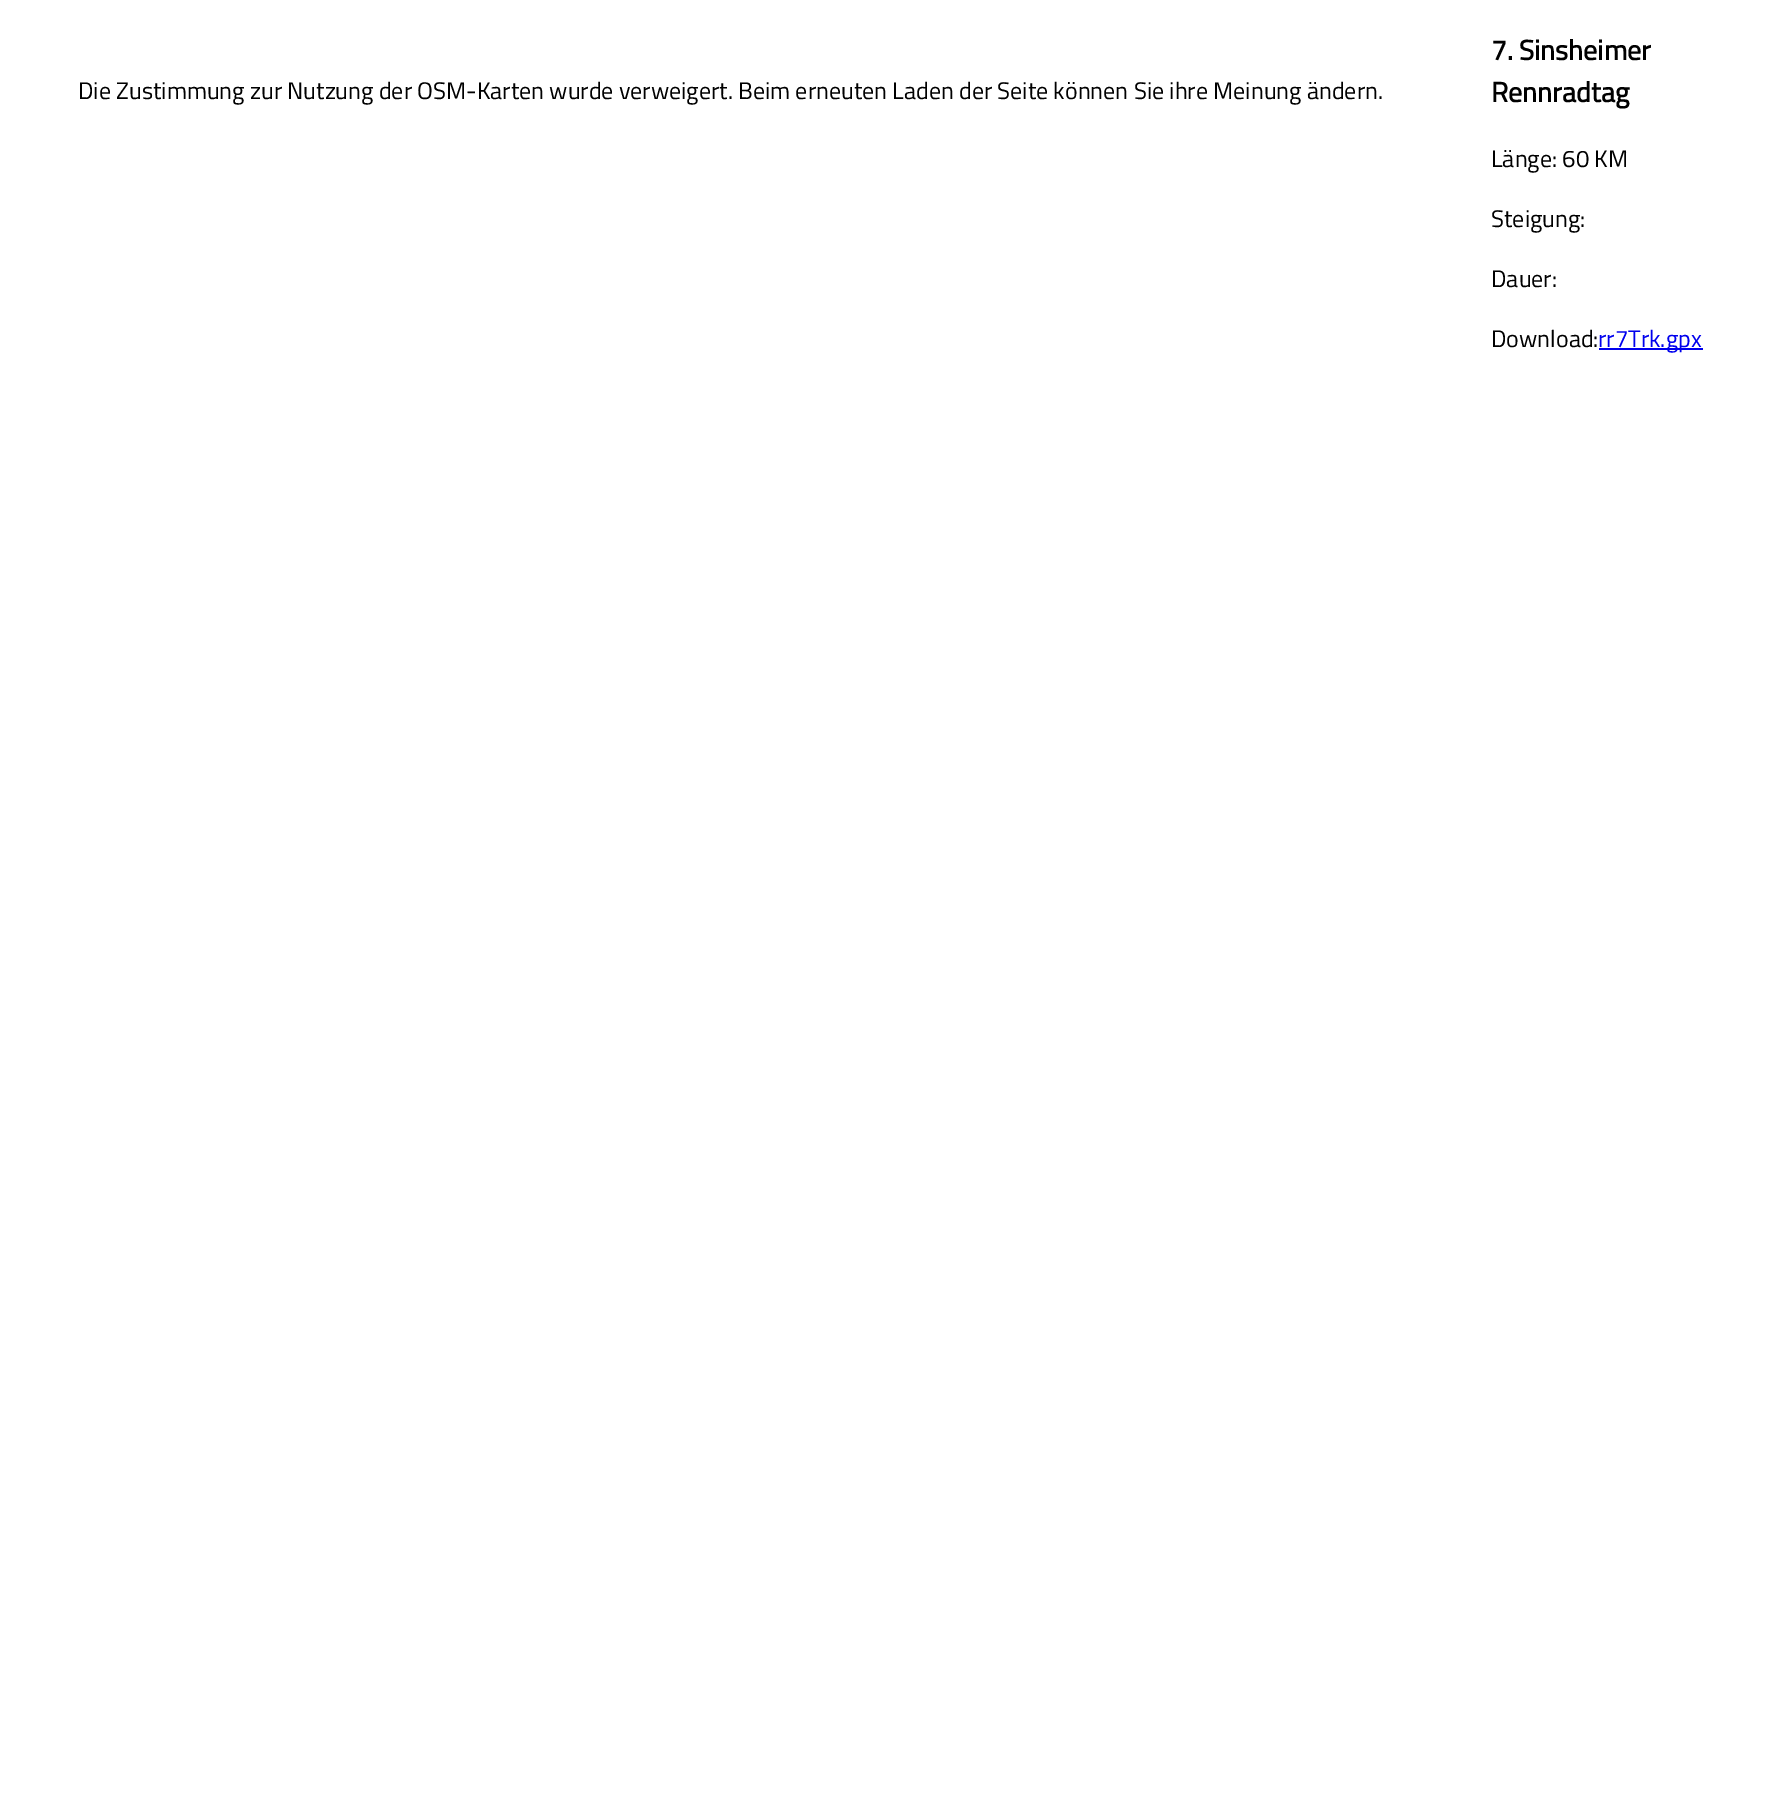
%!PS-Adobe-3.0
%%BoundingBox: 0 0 1791 1808
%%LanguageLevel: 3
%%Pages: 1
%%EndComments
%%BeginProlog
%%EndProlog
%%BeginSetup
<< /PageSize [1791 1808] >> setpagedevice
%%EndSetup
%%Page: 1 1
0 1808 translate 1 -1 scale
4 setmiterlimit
1 setgray
0 0 1791 1808 rectfill
0 0 0.933 setrgbcolor
1599 348 104 2 rectfill
/TitilliumWeb-Regular [24 0 0 -24 0 0] selectfont
0 setgray
78 99 moveto (Die Zustimmung zur Nutzung der OSM-Karten wurde verweigert. Beim erneuten Laden der Seite können Sie ihre Meinung ändern.) show
/TitilliumWeb-Bold [28 0 0 -28 0 0] selectfont
1491 60 moveto (7. Sinsheimer) show
1491 102 moveto (Rennradtag) show
/TitilliumWeb-Regular [24 0 0 -24 0 0] selectfont
1491 167 moveto (Länge: 60 KM) show
1491 227 moveto (Steigung:) show
1491 287 moveto (Dauer:) show
1491 347 moveto (Download:) show
0 0 0.933 setrgbcolor
1598 347 moveto (rr7Trk.gpx) show
showpage
%%EOF
